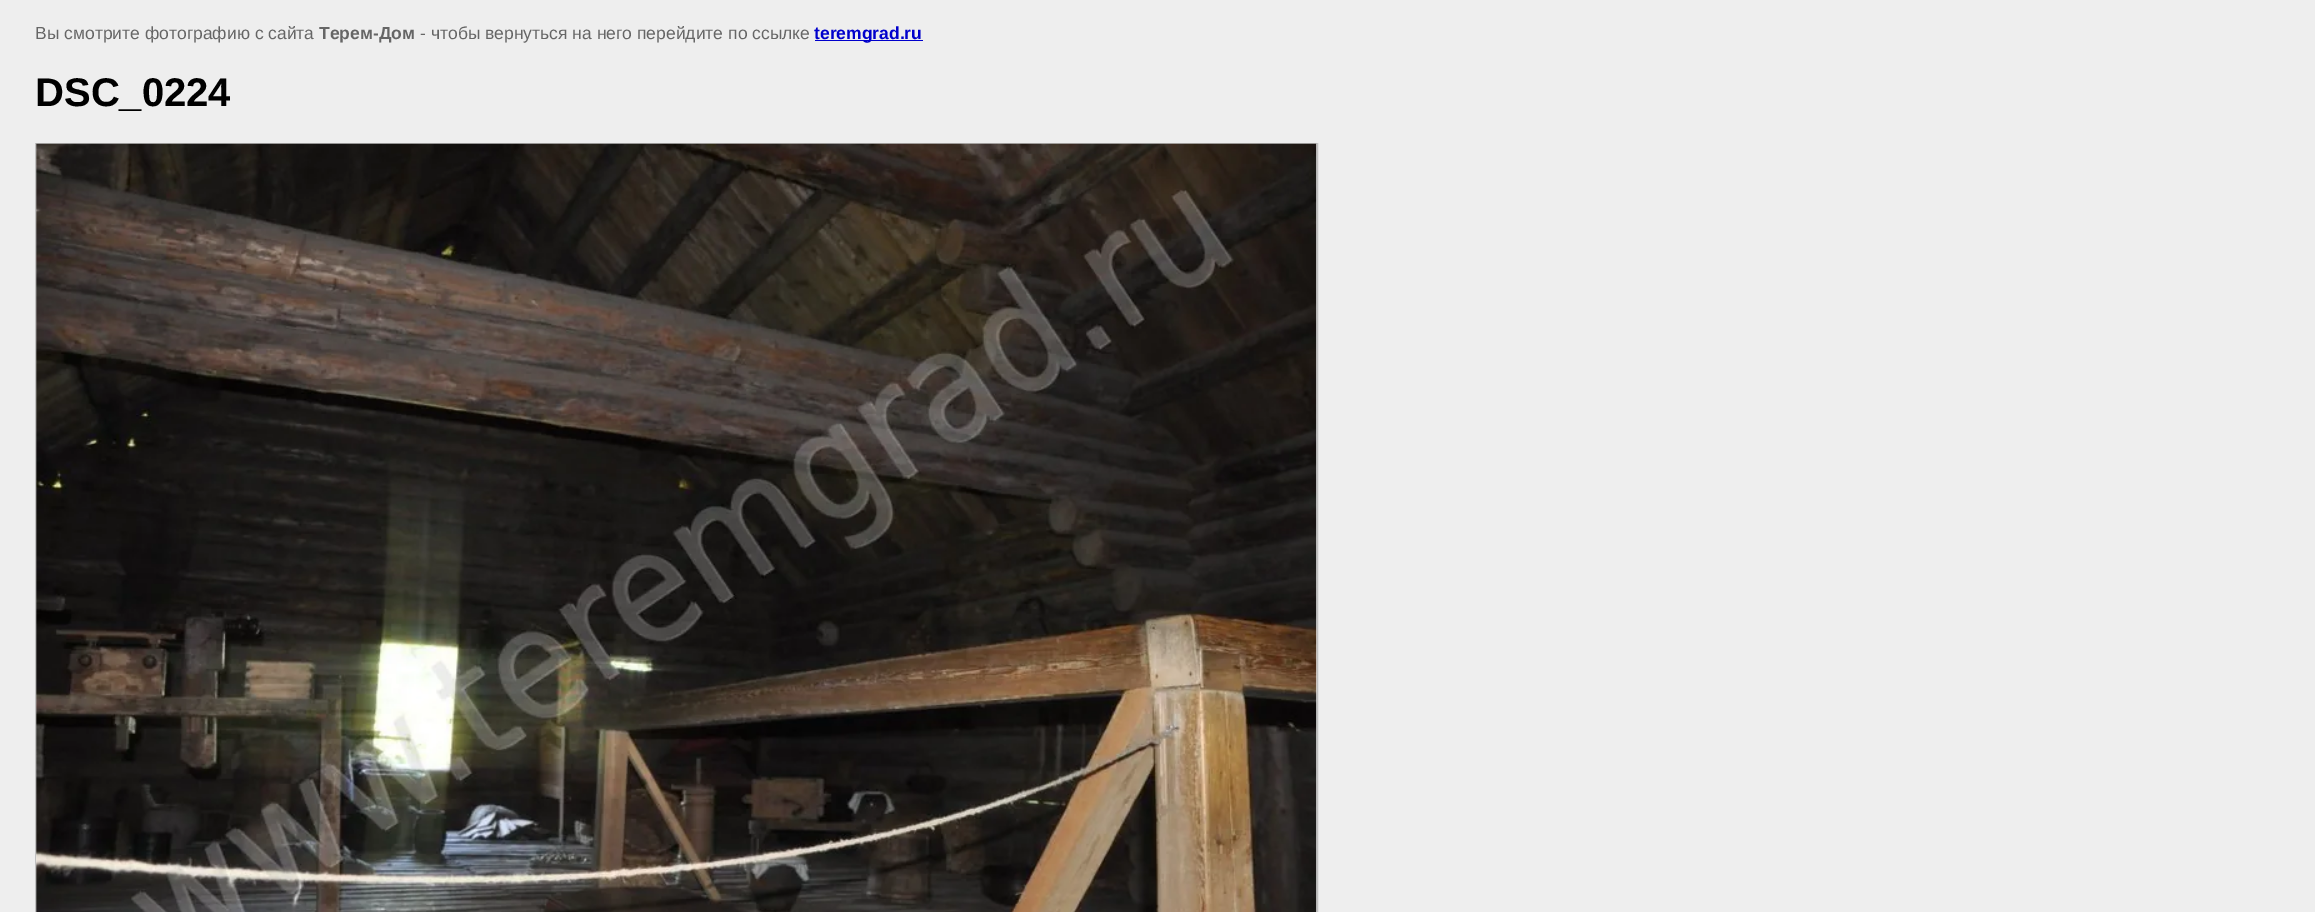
%!PS-Adobe-3.0
%%BoundingBox: 0 0 2315 912
%%LanguageLevel: 3
%%Pages: 1
%%EndComments
%%BeginProlog
/drawimage { 5 dict begin { /h /w /y /x /name } { exch def } forall
  gsave x y translate w h scale
  w h 8 [w 0 0 h 0 0] name (r) file false 3 colorimage grestore end } def
%%EndProlog
%%BeginSetup
<< /PageSize [2315 912] >> setpagedevice
%%EndSetup
%%Page: 1 1
0 912 translate 1 -1 scale
4 setmiterlimit
0.933 setgray
0 0 2315 912 rectfill
0 0 0.8 setrgbcolor
815 40 108 1 rectfill
0.753 setgray
35.5 143.5 1282 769 rectstroke
(images/1.raw) 36 143 1281 769 drawimage
/LiberationSans-Regular [17.5 0 0 -17.5 0 0] selectfont
0.4 setgray
35 39 moveto (Вы смотрите фотографию с сайта) show
/LiberationSans-Bold [17.5 0 0 -17.5 0 0] selectfont
319 39 moveto (Терем-Дом) show
/LiberationSans-Regular [17.5 0 0 -17.5 0 0] selectfont
420 39 moveto (- чтобы вернуться на него перейдите по ссылке) show
/LiberationSans-Bold [17.5 0 0 -17.5 0 0] selectfont
0 0 0.8 setrgbcolor
814 39 moveto (teremgrad.ru) show
/LiberationSans-Bold [40 0 0 -40 0 0] selectfont
0 setgray
35 106 moveto (DSC_0224) show
showpage
%%EOF
